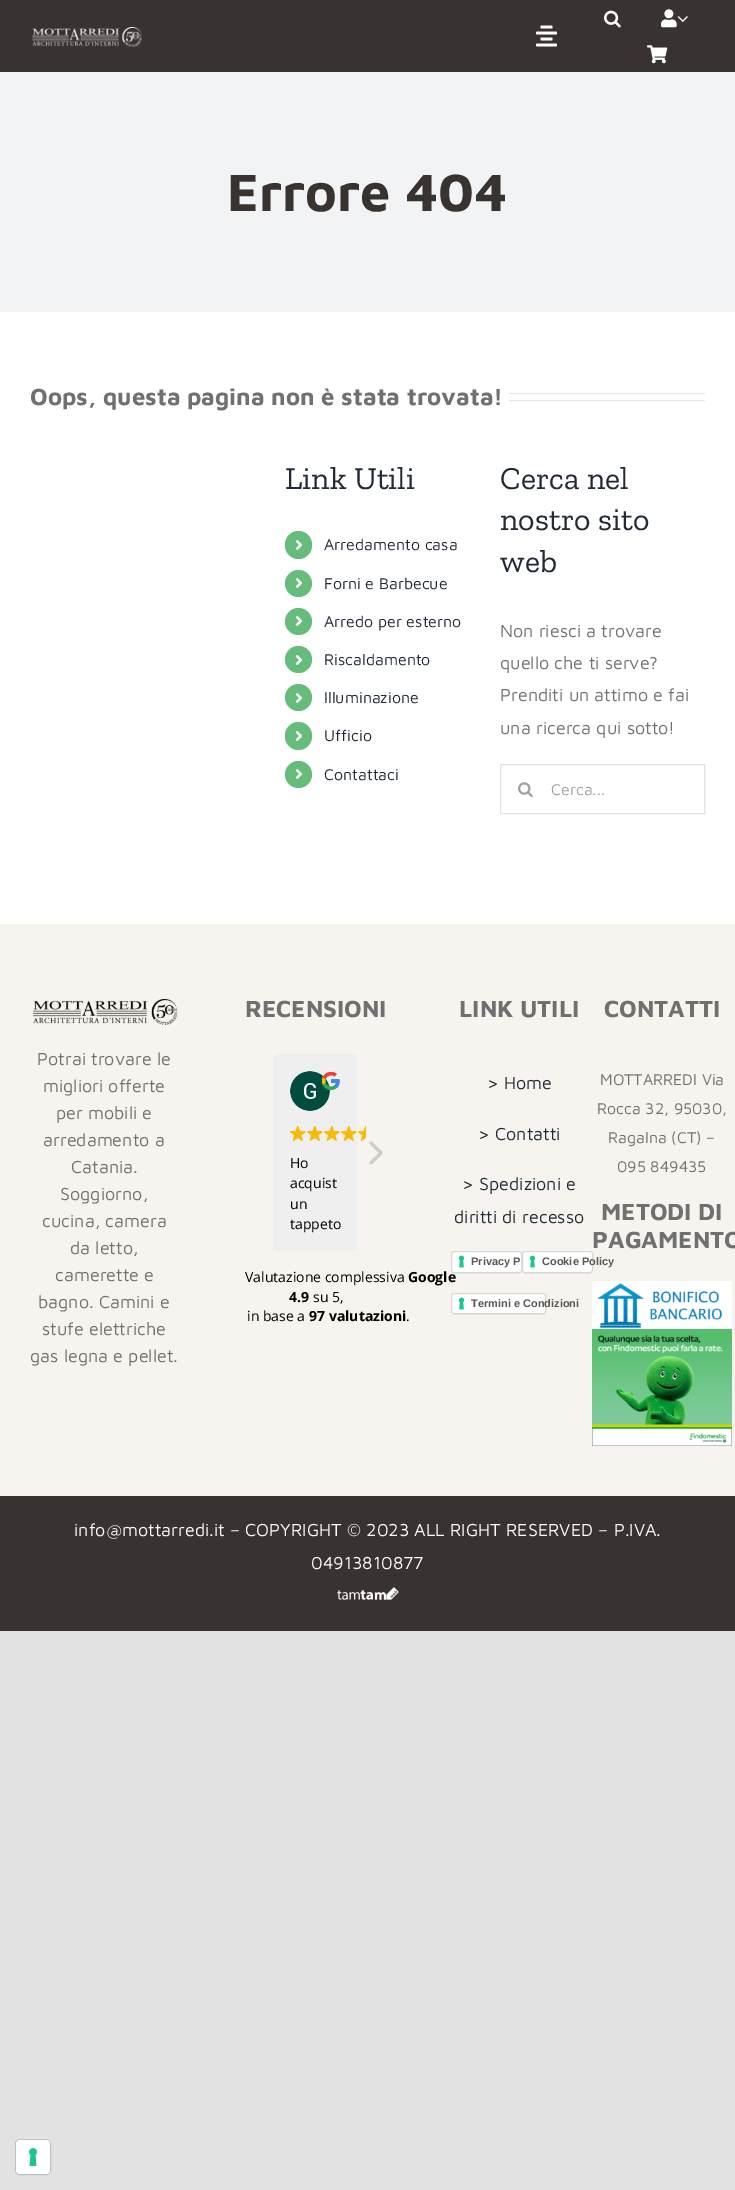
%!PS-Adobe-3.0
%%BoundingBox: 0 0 735 2190
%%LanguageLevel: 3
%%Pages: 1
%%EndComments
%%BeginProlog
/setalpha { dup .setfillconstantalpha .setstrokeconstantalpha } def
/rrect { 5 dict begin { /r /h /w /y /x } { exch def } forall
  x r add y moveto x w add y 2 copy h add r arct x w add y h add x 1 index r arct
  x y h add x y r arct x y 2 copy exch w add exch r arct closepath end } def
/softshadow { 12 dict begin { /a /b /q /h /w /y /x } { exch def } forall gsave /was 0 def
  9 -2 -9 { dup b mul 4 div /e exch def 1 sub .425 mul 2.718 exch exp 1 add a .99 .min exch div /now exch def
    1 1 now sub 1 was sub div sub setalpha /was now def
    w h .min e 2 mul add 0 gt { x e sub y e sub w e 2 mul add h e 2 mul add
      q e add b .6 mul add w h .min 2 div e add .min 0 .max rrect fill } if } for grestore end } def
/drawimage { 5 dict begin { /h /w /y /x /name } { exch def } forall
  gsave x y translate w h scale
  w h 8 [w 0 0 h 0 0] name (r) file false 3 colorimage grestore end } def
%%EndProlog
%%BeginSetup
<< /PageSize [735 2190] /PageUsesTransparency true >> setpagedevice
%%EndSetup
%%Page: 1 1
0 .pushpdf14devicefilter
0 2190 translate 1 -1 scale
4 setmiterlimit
0.886 setgray
0 0 735 2190 rectfill
1 setgray
0 312 735 612 rectfill
0.22 0.2 0.188 setrgbcolor
0 0 735 72 rectfill
(images/1.raw) 32 27 110 20 drawimage
(images/2.raw) 536 25 21 22 drawimage
(images/3.raw) 604 10 17 18 drawimage
(images/4.raw) 661 9 16 19 drawimage
(images/5.raw) 677 16 11 6 drawimage
(images/6.raw) 647 45 21 19 drawimage
0.949 0.953 0.961 setrgbcolor
0 72 735 240 rectfill
0.906 0.902 0.902 setrgbcolor
509 393 196 1 rectfill
509 400 196 1 rectfill
0.396 0.737 0.482 setrgbcolor
285 531 27 28 13.5 rrect fill
(images/7.raw) 295 540 8 10 drawimage
newpath 298.5 583.5 13.5 0 360 arc closepath fill
(images/7.raw) 295 578 8 10 drawimage
newpath 298.5 621.5 13.5 0 360 arc closepath fill
(images/7.raw) 295 616 8 10 drawimage
newpath 298.5 659.5 13.5 0 360 arc closepath fill
(images/7.raw) 295 655 8 10 drawimage
newpath 298.5 697.5 13.5 0 360 arc closepath fill
(images/7.raw) 295 693 8 10 drawimage
285 722 27 28 13.5 rrect fill
(images/7.raw) 295 731 8 10 drawimage
newpath 298.5 774.5 13.5 0 360 arc closepath fill
(images/7.raw) 295 769 8 10 drawimage
0.886 setgray
500.5 764.5 204 49 rectstroke
(images/8.raw) 518 782 15 16 drawimage
0.969 0.957 0.937 setrgbcolor
0 924 735 572 rectfill
(images/9.raw) 33 999 145 26 drawimage
0.8 setgray
newpath 372 1142 moveto 382.5 1152 lineto 382.5 1153 382.5 1153.5 381.5 1154 curveto 380.5 1154 lineto 379.5 1154 369.5 1144 369.5 1143 curveto 369.5 1141.5 371 1141 372 1142 curveto closepath fill
newpath 370 1161.5 moveto 380.5 1151.5 lineto 381 1151 382 1151.5 382 1152 curveto 382.5 1153.5 lineto 382 1154.5 372 1164 371.5 1164.5 curveto 370 1164.5 369 1162.5 370 1161.5 curveto closepath fill
0.937 setgray
273 1054 85 197 4 rrect fill
(images/10.raw) 290 1071 40 40 drawimage
(images/11.raw) 321 1071 19 20 drawimage
(images/12.raw) 290 1126 16 15 drawimage
(images/12.raw) 307 1126 16 15 drawimage
(images/12.raw) 324 1126 16 15 drawimage
(images/12.raw) 341 1126 16 15 drawimage
(images/13.raw) 358 1126 8 15 drawimage
0 setgray
452 1253 69 20 2 0.5 0.15 softshadow
452 1295 93 19 2 0.5 0.15 softshadow
1 setgray
451 1293 95 21 3 rrect fill
(images/14.raw) 458 1297 7 13 drawimage
0.15 setalpha
0 setgray
451.5 1293.5 94 20 2.5 rrect stroke
1 setalpha
(images/15.raw) 592 1281 140 48 drawimage
(images/16.raw) 592 1329 140 117 drawimage
0.22 0.2 0.188 setrgbcolor
0 1496 735 135 rectfill
(images/17.raw) 337 1587 62 13 drawimage
0.753 setgray
15.5 2139.5 35 35 4.5 rrect stroke
1 setgray
16 2140 34 34 4 rrect fill
(images/18.raw) 29 2148 8 18 drawimage
/MavenPro-Bold [54 0 0 -54 0 0] selectfont
0.22 0.2 0.188 setrgbcolor
227 211 moveto (Errore 404) show
/MavenPro-Bold [24 0 0 -24 0 0] selectfont
0.439 setgray
30 405 moveto (Oops, questa pagina non è stata trovata!) show
/ZillaSlab-Regular [32 0 0 -32 0 0] selectfont
0.129 0.161 0.204 setrgbcolor
285 489 moveto (Link Utili) show
/MavenPro-Regular [16 0 0 -16 0 0] selectfont
324 550 moveto (Arredamento casa) show
324 589 moveto (Forni e Barbecue) show
324 627 moveto (Arredo per esterno) show
324 665 moveto (Riscaldamento) show
324 703 moveto (Illuminazione) show
324 741 moveto (Ufficio) show
324 780 moveto (Contattaci) show
/ZillaSlab-Regular [32 0 0 -32 0 0] selectfont
500 489 moveto (Cerca nel) show
500 530 moveto (nostro sito) show
500 572 moveto (web) show
/MavenPro-Regular [18 0 0 -18 0 0] selectfont
0.439 setgray
500 637 moveto (Non riesci a trovare) show
500 669 moveto (quello che ti serve?) show
500 701 moveto (Prenditi un attimo e fai) show
500 734 moveto (una ricerca qui sotto!) show
/MavenPro-Regular [16 0 0 -16 0 0] selectfont
0.62 0.627 0.643 setrgbcolor
551 795 moveto (Cerca...) show
/MavenPro-Regular [18 0 0 -18 0 0] selectfont
0.439 setgray
37 1065 moveto (Potrai trovare le) show
43 1092 moveto (migliori offerte) show
56 1119 moveto (per mobili e) show
43 1146 moveto (arredamento a) show
71 1173 moveto (Catania.) show
60 1200 moveto (Soggiorno,) show
42 1227 moveto (cucina, camera) show
70 1254 moveto (da letto,) show
55 1281 moveto (camerette e) show
38 1308 moveto (bagno. Camini e) show
42 1335 moveto (stufe elettriche) show
30 1362 moveto (gas legna e pellet.) show
/MavenPro-Bold [24 0 0 -24 0 0] selectfont
245 1017 moveto (RECENSIONI) show
/OpenSans-Regular [14 0 0 -14 0 0] selectfont
0 setgray
290 1168 moveto (Ho) show
290 1188 moveto (acquist) show
290 1209 moveto (un) show
290 1229 moveto (tappeto) show
245 1282 moveto (Valutazione complessiva) show
/OpenSans-Bold [14 0 0 -14 0 0] selectfont
408 1282 moveto (Google) show
289 1302 moveto (4.9) show
/OpenSans-Regular [14 0 0 -14 0 0] selectfont
313 1302 moveto (su 5,) show
247 1321 moveto (in base a) show
/OpenSans-Bold [14 0 0 -14 0 0] selectfont
309 1321 moveto (97 valutazioni) show
/OpenSans-Regular [14 0 0 -14 0 0] selectfont
406 1321 moveto (.) show
/MavenPro-Bold [24 0 0 -24 0 0] selectfont
0.439 setgray
459 1017 moveto (LINK UTILI) show
/MavenPro-Regular [18 0 0 -18 0 0] selectfont
0.129 0.161 0.204 setrgbcolor
487 1089 moveto (> Home) show
478 1140 moveto (> Contatti) show
462 1190 moveto (> Spedizioni e) show
454 1223 moveto (diritti di recesso) show
1 setgray
451 1251 71 22 3 rrect fill
(images/14.raw) 458 1255 7 13 drawimage
0.15 setalpha
0 setgray
451.5 1251.5 70 21 2.5 rrect stroke
/LiberationSans-Bold [11 0 0 -11 0 0] selectfont
1 setalpha
0.345 0.345 0.341 setrgbcolor
471 1265 moveto (Privacy P) show
0 setgray
523 1253 69 20 2 0.5 0.15 softshadow
1 setgray
522 1251 71 22 3 rrect fill
(images/14.raw) 529 1255 7 13 drawimage
0.15 setalpha
0 setgray
522.5 1251.5 70 21 2.5 rrect stroke
1 setalpha
0.345 0.345 0.341 setrgbcolor
542 1265 moveto (Cookie Policy) show
471 1307 moveto (Termini e Condizioni) show
/MavenPro-Bold [24 0 0 -24 0 0] selectfont
0.439 setgray
604 1017 moveto (CONTATTI) show
/MavenPro-Regular [16 0 0 -16 0 0] selectfont
600 1085 moveto (MOTTARREDI Via) show
597 1114 moveto (Rocca 32, 95030,) show
608 1143 moveto (Ragalna \(CT\) –) show
617 1172 moveto (095 849435) show
/MavenPro-Bold [24 0 0 -24 0 0] selectfont
601 1220 moveto (METODI DI) show
592 1248 moveto (PAGAMENTO) show
/MavenPro-Regular [18 0 0 -18 0 0] selectfont
1 setgray
74 1536 moveto (info@mottarredi.it – COPYRIGHT © 2023 ALL RIGHT RESERVED – P.IVA.) show
311 1569 moveto (04913810877) show
.poppdf14devicefilter showpage
%%EOF
